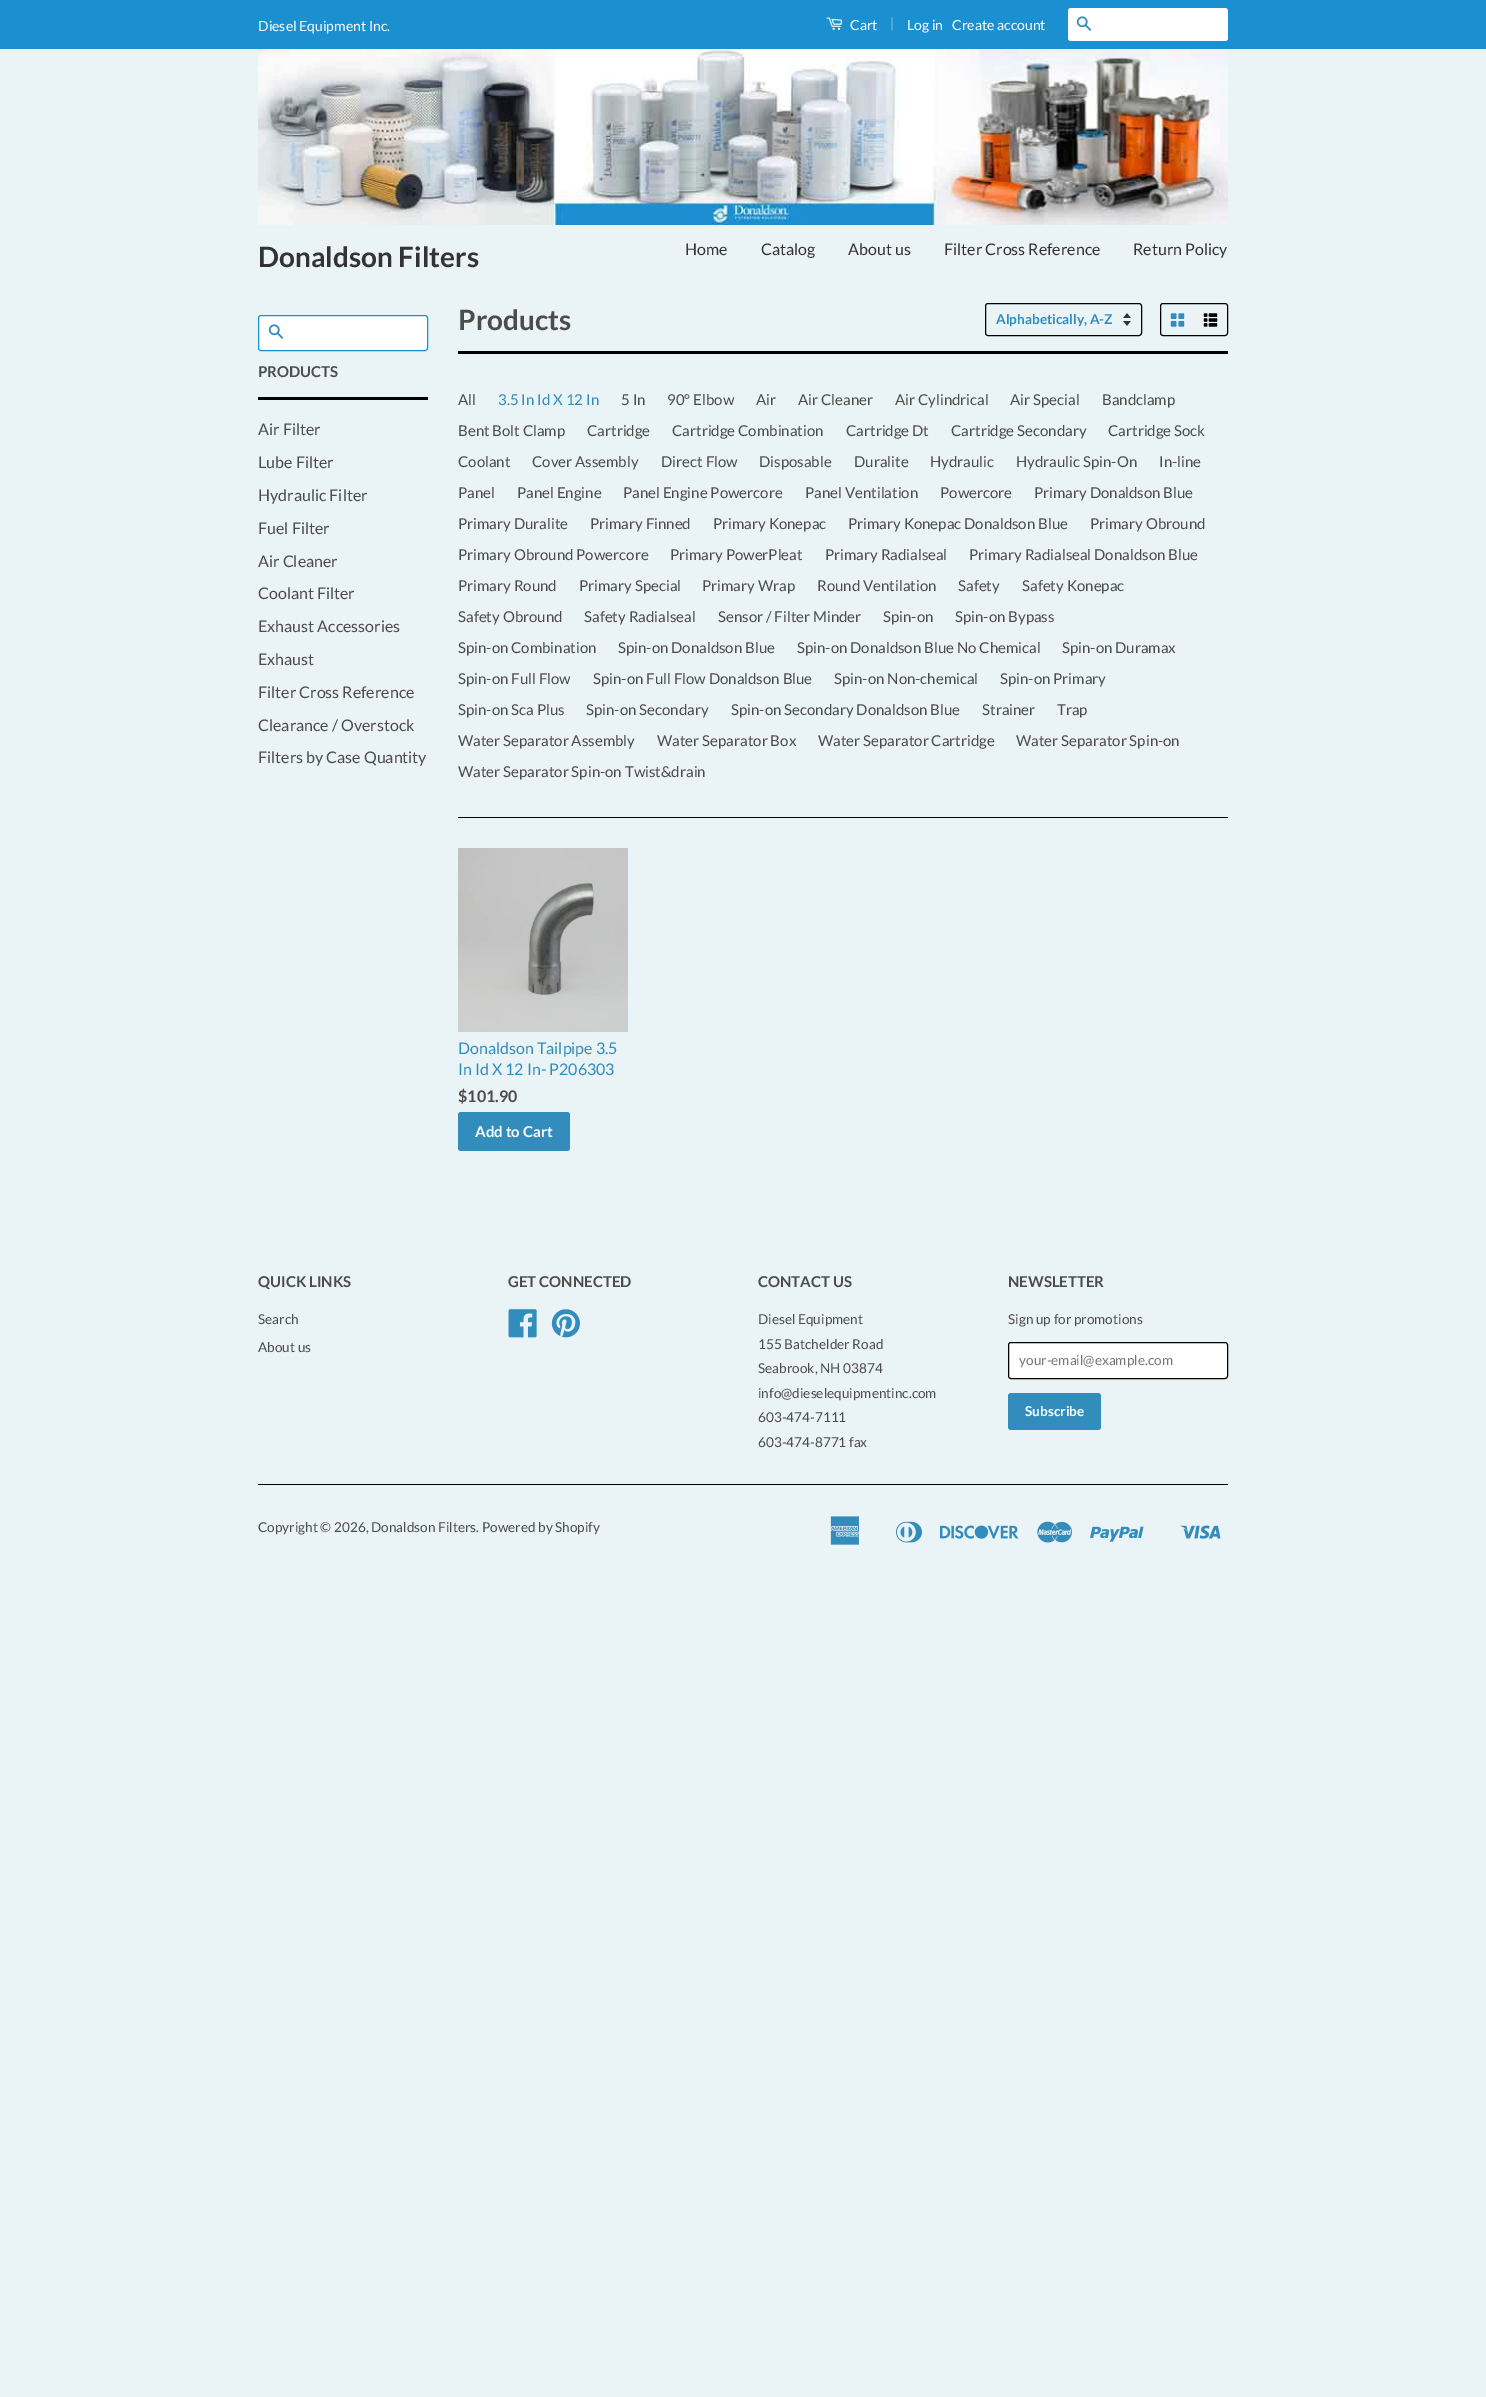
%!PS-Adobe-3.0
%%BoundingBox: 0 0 1486 2397
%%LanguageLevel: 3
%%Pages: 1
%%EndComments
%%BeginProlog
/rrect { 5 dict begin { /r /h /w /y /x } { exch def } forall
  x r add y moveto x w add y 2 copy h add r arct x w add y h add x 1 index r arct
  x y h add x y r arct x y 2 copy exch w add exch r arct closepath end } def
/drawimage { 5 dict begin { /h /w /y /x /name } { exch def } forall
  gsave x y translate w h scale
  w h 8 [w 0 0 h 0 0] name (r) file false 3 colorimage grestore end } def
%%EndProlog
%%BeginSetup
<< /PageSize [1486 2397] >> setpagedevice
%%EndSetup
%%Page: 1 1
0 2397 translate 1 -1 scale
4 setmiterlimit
0.918 0.953 0.961 setrgbcolor
0 0 1486 2397 rectfill
0.102 0.565 0.816 setrgbcolor
0 0 1486 49 rectfill
(images/1.raw) 826 17 16 13 drawimage
1 setgray
1068 8 160 33 3 rrect fill
(images/2.raw) 1076 16 16 15 drawimage
(images/3.raw) 258 49 970 176 drawimage
0 setgray
258 397 170 3 rectfill
1 setgray
258.5 315.5 169 35 2.5 rrect gsave fill grestore
0.102 0.565 0.816 setrgbcolor
stroke
(images/2.raw) 268 324 16 15 drawimage
0 setgray
458 351 770 3 rectfill
(images/4.raw) 1123 313 8 13 drawimage
985.5 303.5 156 32 2.5 rrect stroke
1160.5 303.5 67 32 2.5 rrect stroke
(images/5.raw) 1170 313 15 14 drawimage
(images/6.raw) 1203 313 15 14 drawimage
458 817 770 1 rectfill
(images/7.raw) 458 848 170 184 drawimage
0.2 0.553 0.737 setrgbcolor
458 1112 112 39 3 rrect fill
(images/8.raw) 508 1309 29 29 drawimage
(images/9.raw) 551 1309 29 29 drawimage
1 setgray
1008.5 1342.5 219 36 2.5 rrect gsave fill grestore
0 setgray
stroke
0.2 0.553 0.737 setrgbcolor
1008 1393 93 37 3 rrect fill
0 setgray
258 1484 970 1 rectfill
(images/10.raw) 830 1516 30 29 drawimage
(images/11.raw) 896 1521 26 22 drawimage
(images/12.raw) 940 1525 79 14 drawimage
(images/13.raw) 1037 1521 35 22 drawimage
(images/14.raw) 1090 1526 54 16 drawimage
(images/15.raw) 1180 1525 41 14 drawimage
/Lato-Regular [14 0 0 -14 0 0] selectfont
1 setgray
258 31 moveto (Diesel Equipment Inc.) show
850 30 moveto (Cart) show
0.463 0.737 0.89 setrgbcolor
890 28 moveto (|) show
1 setgray
907 30 moveto (Log in) show
952 30 moveto (Create account) show
/Lato-Bold [28 0 0 -28 0 0] selectfont
0.2 setgray
258 267 moveto (Donaldson Filters) show
/Lato-Regular [16 0 0 -16 0 0] selectfont
685 255 moveto (Home) show
761 255 moveto (Catalog) show
848 255 moveto (About us) show
944 255 moveto (Filter Cross Reference) show
1133 255 moveto (Return Policy) show
/Lato-Bold [15 0 0 -15 0 0] selectfont
0.298 setgray
258 377 moveto (PRODUCTS) show
/Lato-Regular [16 0 0 -16 0 0] selectfont
258 435 moveto (Air Filter) show
258 468 moveto (Lube Filter) show
258 501 moveto (Hydraulic Filter) show
258 534 moveto (Fuel Filter) show
258 567 moveto (Air Cleaner) show
258 599 moveto (Coolant Filter) show
258 632 moveto (Exhaust Accessories) show
258 665 moveto (Exhaust) show
258 698 moveto (Filter Cross Reference) show
258 731 moveto (Clearance / Overstock) show
258 763 moveto (Filters by Case Quantity) show
/Lato-Bold [28 0 0 -28 0 0] selectfont
458 330 moveto (Products) show
/Lato-Bold [13.6 0 0 -13.6 0 0] selectfont
0.2 0.553 0.737 setrgbcolor
996 324 moveto (Alphabetically, A-Z) show
/Lato-Regular [15 0 0 -15 0 0] selectfont
0.298 setgray
458 405 moveto (All) show
0.2 0.553 0.737 setrgbcolor
498 405 moveto (3.5 In Id X 12 In) show
0.298 setgray
621 405 moveto (5 In) show
667 405 moveto (90° Elbow) show
756 405 moveto (Air) show
798 405 moveto (Air Cleaner) show
895 405 moveto (Air Cylindrical) show
1010 405 moveto (Air Special) show
1102 405 moveto (Bandclamp) show
458 436 moveto (Bent Bolt Clamp) show
587 436 moveto (Cartridge) show
672 436 moveto (Cartridge Combination) show
846 436 moveto (Cartridge Dt) show
951 436 moveto (Cartridge Secondary) show
1108 436 moveto (Cartridge Sock) show
458 467 moveto (Coolant) show
532 467 moveto (Cover Assembly) show
661 467 moveto (Direct Flow) show
759 467 moveto (Disposable) show
854 467 moveto (Duralite) show
930 467 moveto (Hydraulic) show
1016 467 moveto (Hydraulic Spin-On) show
1159 467 moveto (In-line) show
458 498 moveto (Panel) show
517 498 moveto (Panel Engine) show
623 498 moveto (Panel Engine Powercore) show
805 498 moveto (Panel Ventilation) show
940 498 moveto (Powercore) show
1034 498 moveto (Primary Donaldson Blue) show
458 529 moveto (Primary Duralite) show
590 529 moveto (Primary Finned) show
713 529 moveto (Primary Konepac) show
848 529 moveto (Primary Konepac Donaldson Blue) show
1090 529 moveto (Primary Obround) show
458 560 moveto (Primary Obround Powercore) show
670 560 moveto (Primary PowerPleat) show
825 560 moveto (Primary Radialseal) show
969 560 moveto (Primary Radialseal Donaldson Blue) show
458 591 moveto (Primary Round) show
579 591 moveto (Primary Special) show
702 591 moveto (Primary Wrap) show
817 591 moveto (Round Ventilation) show
958 591 moveto (Safety) show
1022 591 moveto (Safety Konepac) show
458 622 moveto (Safety Obround) show
584 622 moveto (Safety Radialseal) show
718 622 moveto (Sensor / Filter Minder) show
883 622 moveto (Spin-on) show
955 622 moveto (Spin-on Bypass) show
458 653 moveto (Spin-on Combination) show
618 653 moveto (Spin-on Donaldson Blue) show
797 653 moveto (Spin-on Donaldson Blue No Chemical) show
1062 653 moveto (Spin-on Duramax) show
458 684 moveto (Spin-on Full Flow) show
593 684 moveto (Spin-on Full Flow Donaldson Blue) show
834 684 moveto (Spin-on Non-chemical) show
1000 684 moveto (Spin-on Primary) show
458 715 moveto (Spin-on Sca Plus) show
586 715 moveto (Spin-on Secondary) show
731 715 moveto (Spin-on Secondary Donaldson Blue) show
982 715 moveto (Strainer) show
1057 715 moveto (Trap) show
458 746 moveto (Water Separator Assembly) show
657 746 moveto (Water Separator Box) show
818 746 moveto (Water Separator Cartridge) show
1016 746 moveto (Water Separator Spin-on) show
458 777 moveto (Water Separator Spin-on Twist&drain) show
/Lato-Regular [16 0 0 -16 0 0] selectfont
0.2 0.553 0.737 setrgbcolor
458 1054 moveto (Donaldson Tailpipe 3.5) show
458 1075 moveto (In Id X 12 In- P206303) show
/Lato-Bold [16 0 0 -16 0 0] selectfont
0.298 setgray
458 1102 moveto ($101.90) show
/Lato-Bold [15 0 0 -15 0 0] selectfont
1 setgray
475 1137 moveto (Add to Cart) show
0.298 setgray
258 1287 moveto (QUICK LINKS) show
/Lato-Regular [13.6 0 0 -13.6 0 0] selectfont
258 1324 moveto (Search) show
258 1352 moveto (About us) show
/Lato-Bold [15 0 0 -15 0 0] selectfont
508 1287 moveto (GET CONNECTED) show
758 1287 moveto (CONTACT US) show
/Lato-Regular [13.6 0 0 -13.6 0 0] selectfont
758 1324 moveto (Diesel Equipment) show
758 1349 moveto (155 Batchelder Road) show
758 1373 moveto (Seabrook, NH 03874) show
758 1398 moveto (info@dieselequipmentinc.com) show
758 1422 moveto (603-474-7111) show
758 1447 moveto (603-474-8771 fax) show
/Lato-Bold [15 0 0 -15 0 0] selectfont
1008 1287 moveto (NEWSLETTER) show
/Lato-Regular [13.6 0 0 -13.6 0 0] selectfont
1008 1324 moveto (Sign up for promotions) show
0.459 setgray
1019 1365 moveto (your-email@example.com) show
/Lato-Bold [13.6 0 0 -13.6 0 0] selectfont
1 setgray
1025 1416 moveto (Subscribe) show
/Lato-Regular [13.6 0 0 -13.6 0 0] selectfont
0.298 setgray
258 1532 moveto (Copyright © 2026, Donaldson Filters. Powered by Shopify) show
showpage
%%EOF
